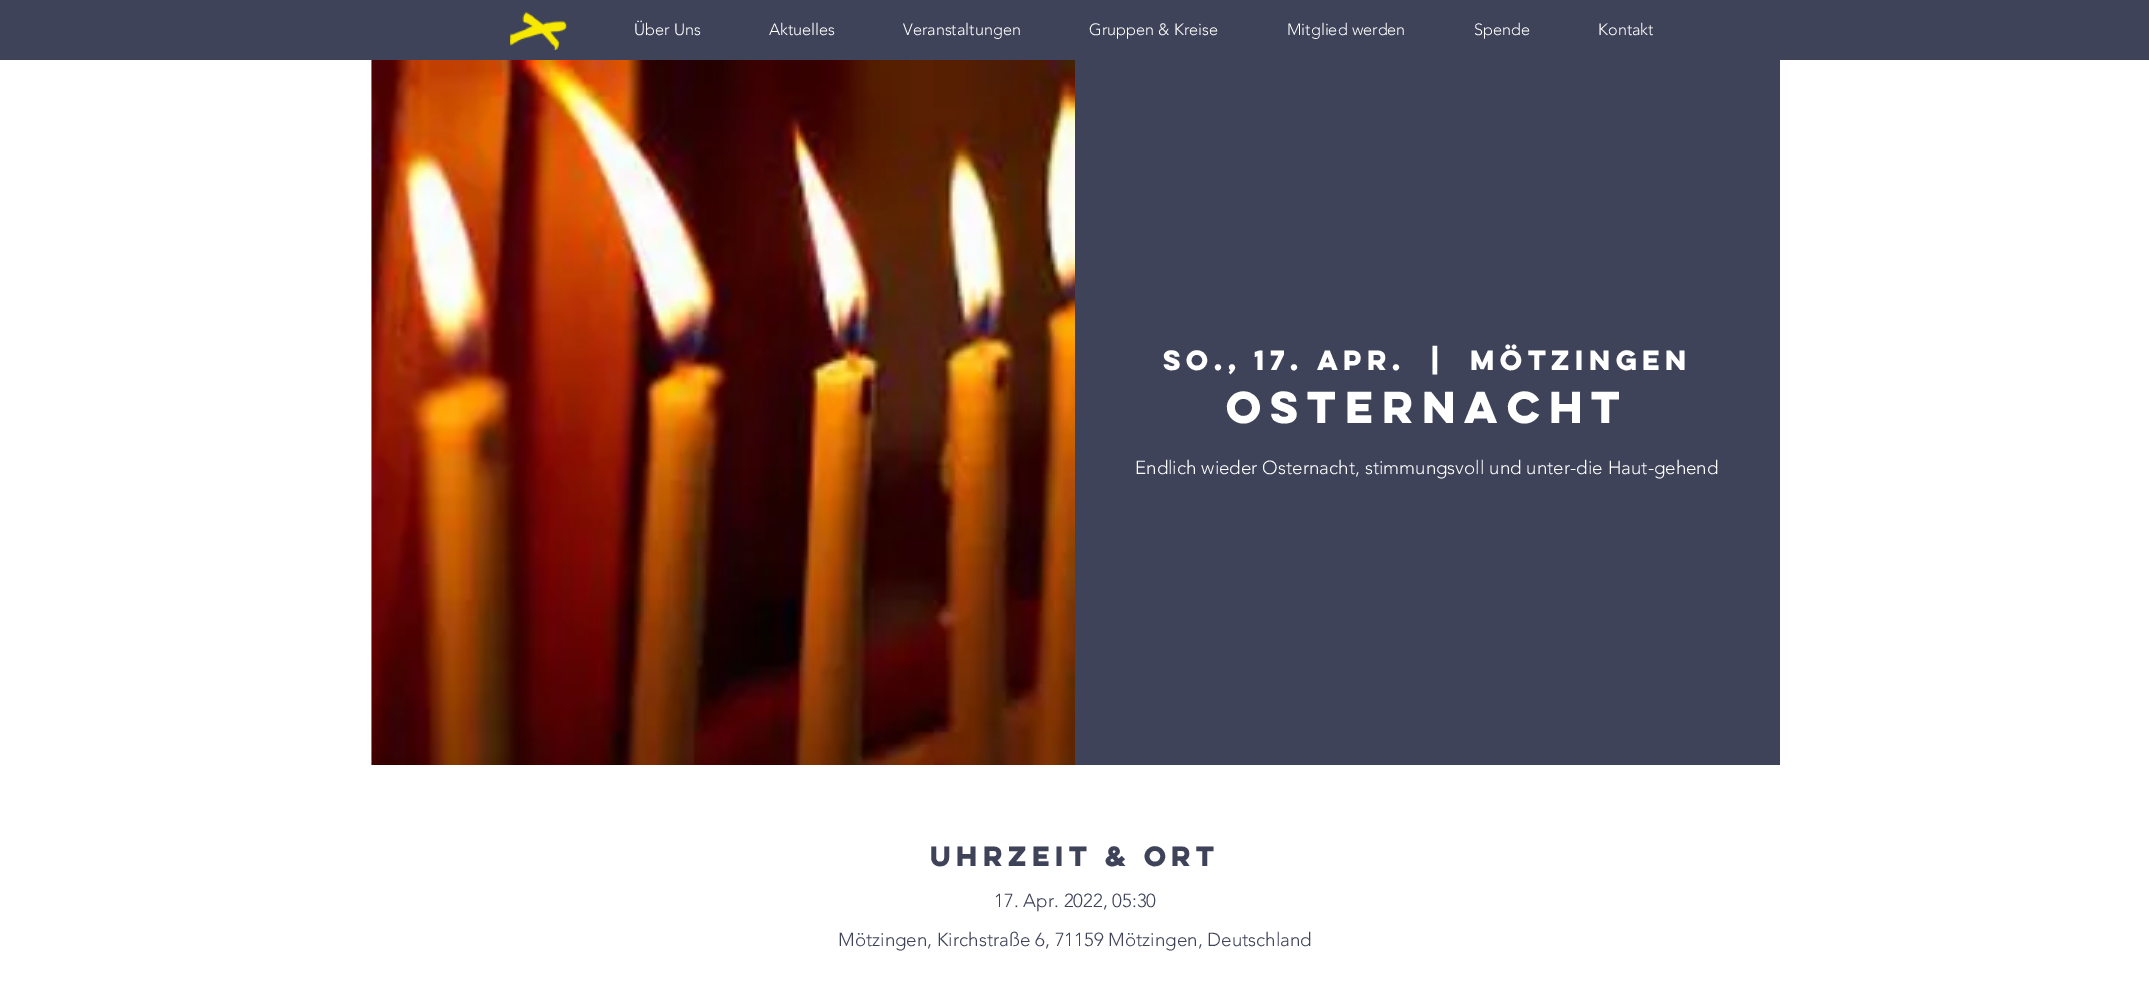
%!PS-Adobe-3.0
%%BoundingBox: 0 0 2149 984
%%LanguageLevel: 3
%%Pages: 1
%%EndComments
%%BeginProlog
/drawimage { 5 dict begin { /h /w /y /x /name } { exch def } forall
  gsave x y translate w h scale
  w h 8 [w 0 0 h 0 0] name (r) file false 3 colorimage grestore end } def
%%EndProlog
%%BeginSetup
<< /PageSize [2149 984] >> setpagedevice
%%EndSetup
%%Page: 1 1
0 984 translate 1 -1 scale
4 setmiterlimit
1 setgray
0 0 2149 984 rectfill
0.247 0.263 0.349 setrgbcolor
0 0 2149 60 rectfill
(images/1.raw) 510 12 57 38 drawimage
(images/2.raw) 371 60 704 705 drawimage
1075 60 705 705 rectfill
/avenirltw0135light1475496-Light [16.25 0 0 -16.25 0 0] selectfont
1 setgray
634 35 moveto (Über Uns) show
769 35 moveto (Aktuelles) show
903 35 moveto (Veranstaltungen) show
1089 35 moveto (Gruppen & Kreise) show
1287 35 moveto (Mitglied werden) show
1474 35 moveto (Spende) show
1598 35 moveto (Kontakt) show
/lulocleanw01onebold-Bold [25 0 0 -25 0 0] selectfont
1163 370 moveto (So., 17. Apr.) show
1431 370 moveto (|) show
1470 370 moveto (Mötzingen) show
/lulocleanw01onebold-Bold [40 0 0 -40 0 0] selectfont
1226 423 moveto (Osternacht) show
/avenirltw0135light1475496-Light [18.75 0 0 -18.75 0 0] selectfont
1135 474 moveto (Endlich wieder Osternacht, stimmungsvoll und unter-die Haut-gehend) show
/lulocleanw01onebold-Bold [25 0 0 -25 0 0] selectfont
0.247 0.263 0.349 setrgbcolor
930 866 moveto (Uhrzeit & Ort) show
/avenirltw0135light1475496-Light [18.75 0 0 -18.75 0 0] selectfont
994 907 moveto (17. Apr. 2022, 05:30) show
838 946 moveto (Mötzingen, Kirchstraße 6, 71159 Mötzingen, Deutschland) show
showpage
%%EOF
